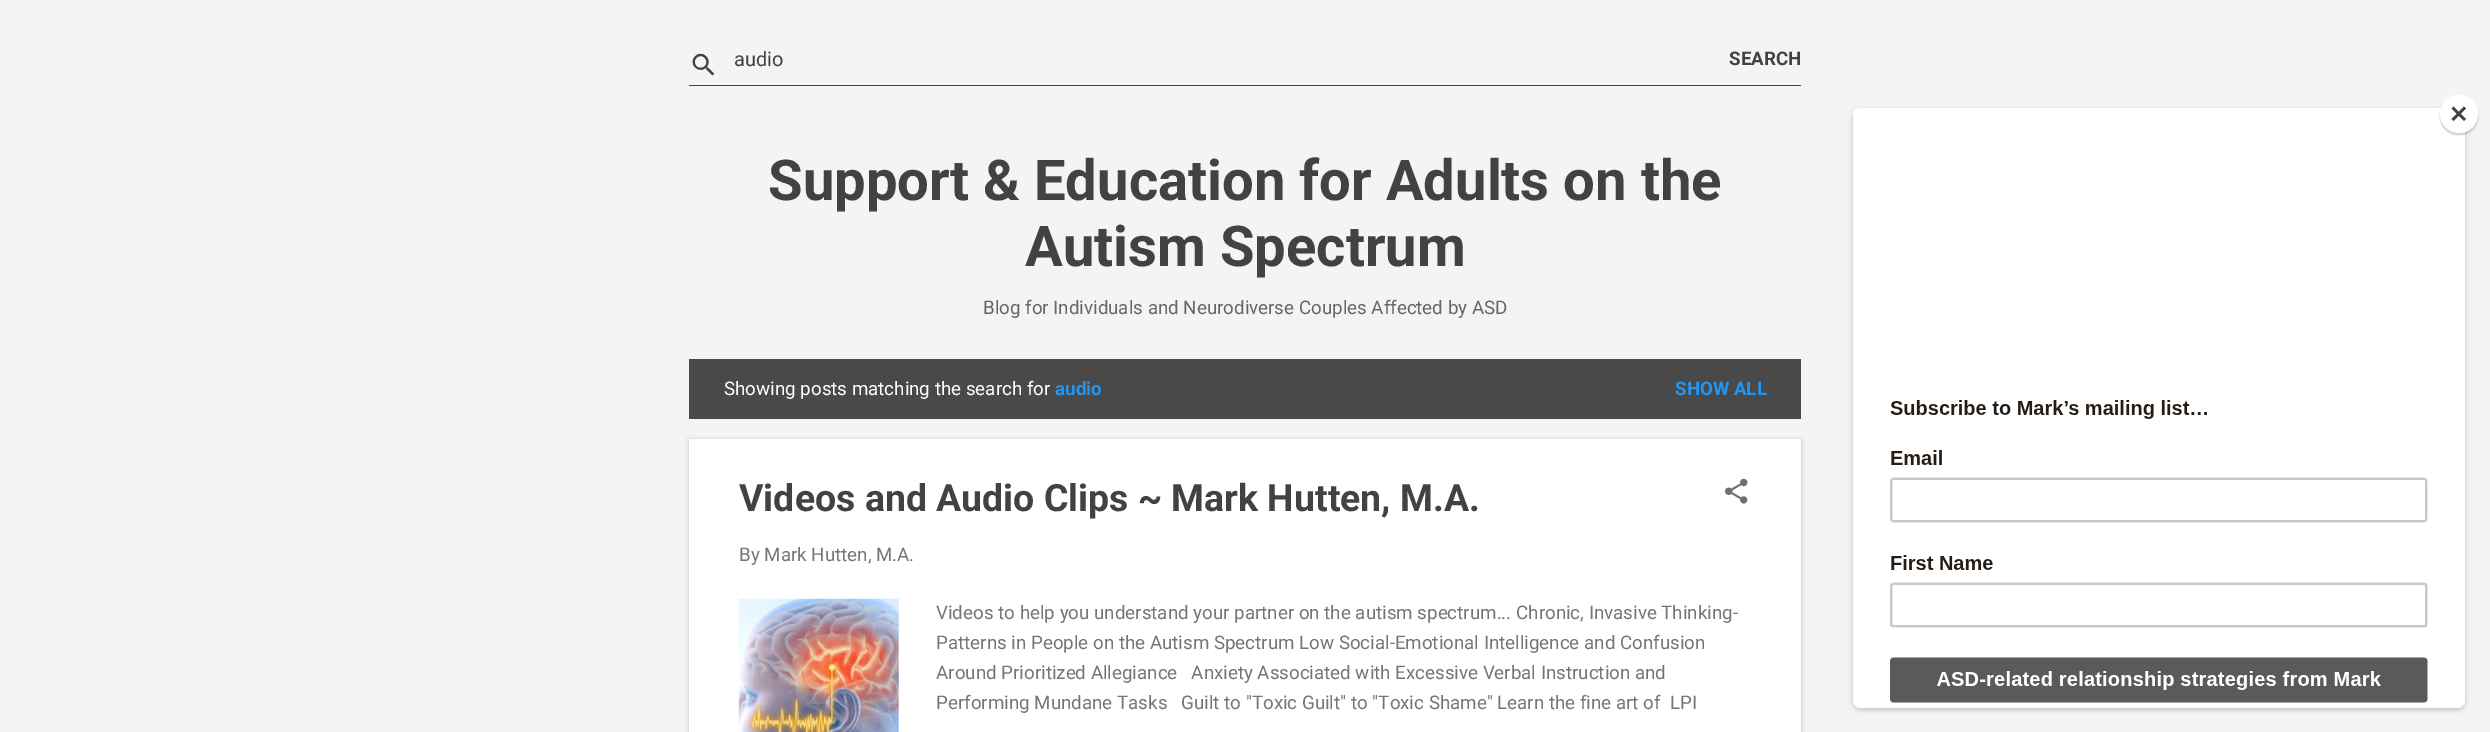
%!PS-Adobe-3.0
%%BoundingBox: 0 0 2490 732
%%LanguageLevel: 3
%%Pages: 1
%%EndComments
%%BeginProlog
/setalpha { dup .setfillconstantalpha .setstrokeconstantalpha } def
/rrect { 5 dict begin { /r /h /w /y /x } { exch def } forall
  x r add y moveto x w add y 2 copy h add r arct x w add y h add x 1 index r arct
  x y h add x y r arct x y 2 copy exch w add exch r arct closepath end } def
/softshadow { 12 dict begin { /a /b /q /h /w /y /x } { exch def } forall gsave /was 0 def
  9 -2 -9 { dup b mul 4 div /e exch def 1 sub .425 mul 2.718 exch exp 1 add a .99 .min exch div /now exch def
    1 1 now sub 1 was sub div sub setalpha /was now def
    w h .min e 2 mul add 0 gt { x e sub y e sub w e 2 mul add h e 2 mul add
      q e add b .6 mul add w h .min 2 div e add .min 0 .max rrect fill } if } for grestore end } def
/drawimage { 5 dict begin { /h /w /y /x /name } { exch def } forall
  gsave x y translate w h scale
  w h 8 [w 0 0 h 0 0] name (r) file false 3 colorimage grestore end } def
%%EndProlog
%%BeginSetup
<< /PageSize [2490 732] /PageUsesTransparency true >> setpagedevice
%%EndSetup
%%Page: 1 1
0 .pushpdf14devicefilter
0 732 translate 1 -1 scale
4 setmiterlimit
0.957 setgray
0 0 2490 732 rectfill
(images/1.raw) 692 53 23 23 drawimage
0.259 setgray
689 85 1112 1 rectfill
0.286 setgray
689 359 1112 60 rectfill
0.235 0.251 0.263 setrgbcolor
689 440 1112 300 0 2.5 0.3 softshadow
1 setgray
689 439 1112 293 rectfill
(images/2.raw) 1725 478 23 26 drawimage
(images/3.raw) 738 598 161 134 drawimage
0 setgray
1853 110 612 600 8 2.5 0.2 softshadow
1 setgray
1853 108 612 600 8 rrect fill
(images/4.raw) 1853 108 612 599 drawimage
0 setgray
2440 98 38 37 18.5 1 0.2 softshadow
1 setgray
newpath 2459 114 19 0 360 arc closepath fill
0.255 setgray
newpath 2464 106.5 moveto 2466 108.5 lineto 2453.5 121 lineto 2451.5 119 lineto closepath fill
newpath 2451.5 108.5 moveto 2453.5 106.5 lineto 2466 119 lineto 2464 121 lineto closepath fill
/Roboto-Regular [20 0 0 -20 0 0] selectfont
0.259 setgray
734 66 moveto (audio) show
/Roboto-Bold [18.75 0 0 -18.75 0 0] selectfont
1729 65 moveto (SEARCH) show
/Roboto-Bold [56.25 0 0 -56.25 0 0] selectfont
768 200 moveto (Support & Education for Adults on the) show
1025 266 moveto (Autism Spectrum) show
/Roboto-Regular [18.75 0 0 -18.75 0 0] selectfont
0.4 setgray
983 314 moveto (Blog for Individuals and Neurodiverse Couples Affected by ASD) show
1 setgray
724 395 moveto (Showing posts matching the search for) show
/Roboto-Bold [18.75 0 0 -18.75 0 0] selectfont
0.129 0.588 0.953 setrgbcolor
1055 395 moveto (audio) show
1675 395 moveto (SHOW ALL) show
/Roboto-Bold [37.5 0 0 -37.5 0 0] selectfont
0.259 setgray
739 511 moveto (Videos and Audio Clips ~ Mark Hutten, M.A.) show
/Roboto-Regular [18.75 0 0 -18.75 0 0] selectfont
0.459 setgray
739 561 moveto (By Mark Hutten, M.A.) show
936 619 moveto (Videos to help you understand your partner on the autism spectrum... Chronic, Invasive Thinking-) show
936 649 moveto (Patterns in People on the Autism Spectrum Low Social-Emotional Intelligence and Confusion) show
936 679 moveto (Around Prioritized Allegiance   Anxiety Associated with Excessive Verbal Instruction and) show
936 709 moveto (Performing Mundane Tasks   Guilt to "Toxic Guilt" to "Toxic Shame" Learn the fine art of  LPI) show
.poppdf14devicefilter showpage
%%EOF
